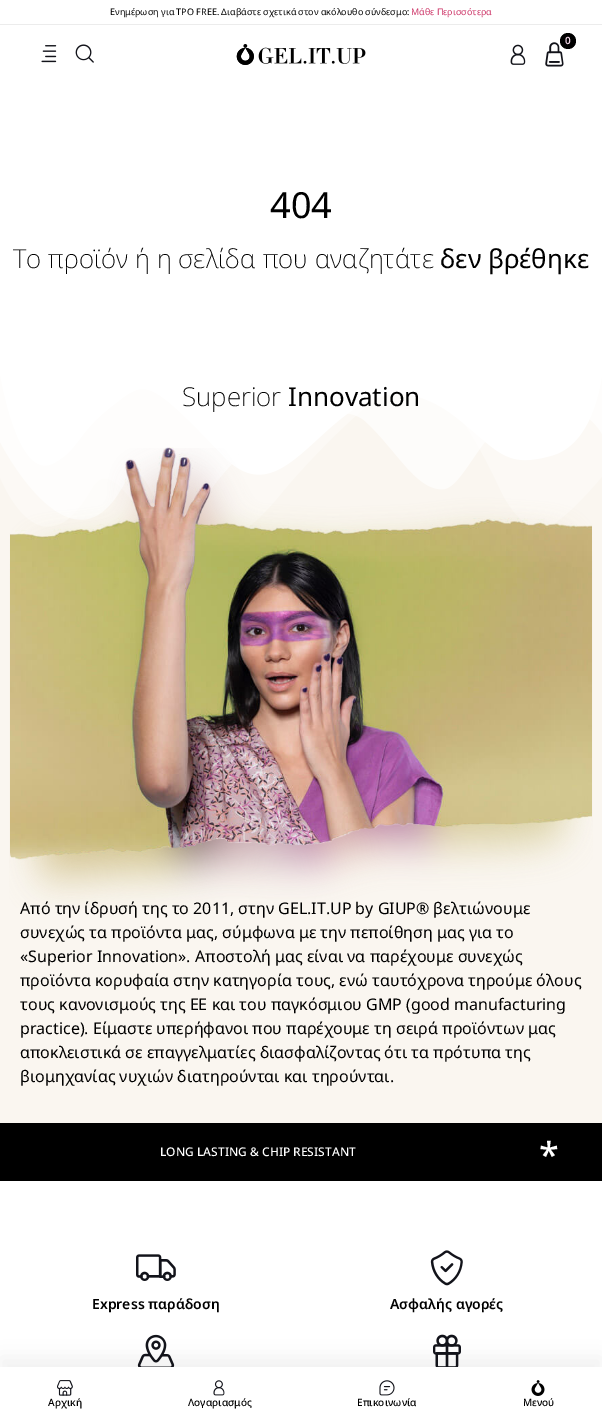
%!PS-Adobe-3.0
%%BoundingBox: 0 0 602 1420
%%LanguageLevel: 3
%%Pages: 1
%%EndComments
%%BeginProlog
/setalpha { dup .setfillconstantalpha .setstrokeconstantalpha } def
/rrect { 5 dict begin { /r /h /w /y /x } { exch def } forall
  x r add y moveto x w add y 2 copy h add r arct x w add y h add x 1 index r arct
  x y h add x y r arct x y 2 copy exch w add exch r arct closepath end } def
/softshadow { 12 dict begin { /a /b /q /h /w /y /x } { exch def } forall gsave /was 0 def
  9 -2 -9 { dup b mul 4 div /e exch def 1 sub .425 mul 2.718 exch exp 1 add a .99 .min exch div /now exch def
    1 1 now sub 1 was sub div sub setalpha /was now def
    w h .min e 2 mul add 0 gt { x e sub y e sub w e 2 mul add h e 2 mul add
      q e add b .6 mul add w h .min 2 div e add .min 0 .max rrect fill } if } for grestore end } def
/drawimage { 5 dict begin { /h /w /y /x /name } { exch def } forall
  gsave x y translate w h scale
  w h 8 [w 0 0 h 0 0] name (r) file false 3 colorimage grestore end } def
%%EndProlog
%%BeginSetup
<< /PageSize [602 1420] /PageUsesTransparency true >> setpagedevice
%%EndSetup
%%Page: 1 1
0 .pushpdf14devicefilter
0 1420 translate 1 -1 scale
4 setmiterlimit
1 setgray
0 0 602 1420 rectfill
0.925 setgray
0 24 602 1 rectfill
(images/1.raw) 545 42 19 25 drawimage
0 setgray
newpath 568 41 8 0 360 arc closepath fill
(images/2.raw) 510 44 16 21 drawimage
(images/3.raw) 41 45 16 18 drawimage
(images/4.raw) 75 44 19 19 drawimage
(images/5.raw) 236 44 130 21 drawimage
0.98 0.965 0.941 setrgbcolor
0 375 602 748 rectfill
(images/6.raw) 0 372 602 156 drawimage
(images/8.raw) 9 448 584 460 drawimage
(images/7.raw) 10 447 582 414 drawimage
0 setgray
0 1123 602 58 rectfill
(images/9.raw) 136 1254 40 27 drawimage
(images/10.raw) 430 1250 33 36 drawimage
(images/11.raw) 137 1334 38 33 drawimage
(images/12.raw) 433 1334 28 33 drawimage
0 1357 602 53 0 10 0.06 softshadow
1 setgray
0 1367 602 53 rectfill
(images/13.raw) 57 1380 16 16 drawimage
(images/14.raw) 213 1380 12 16 drawimage
(images/15.raw) 379 1380 16 16 drawimage
(images/16.raw) 531 1380 14 16 drawimage
/NotoSans-Regular [9 0 0 -9 0 0] selectfont
0 setgray
110 15 moveto (Ενημέρωση για TPO FREE. Διαβάστε σχετικά στον ακόλουθο σύνδεσμο:) show
0.8 0.2 0.4 setrgbcolor
411 15 moveto (Μάθε Περισσότερα) show
/NotoSans-SemiBold [10 0 0 -10 0 0] selectfont
0.933 0.824 0.894 setrgbcolor
565 44 moveto (0) show
/NotoSans-Regular [36 0 0 -36 0 0] selectfont
0 setgray
270 218 moveto (404) show
/NotoSans-ExtraLight [26 0 0 -26 0 0] selectfont
13 268 moveto (Το προϊόν ή η σελίδα που αναζητάτε) show
/NotoSans-Regular [26 0 0 -26 0 0] selectfont
440 268 moveto (δεν βρέθηκε) show
/NotoSans-ExtraLight [26 0 0 -26 0 0] selectfont
182 406 moveto (Superior) show
/NotoSans-Regular [26 0 0 -26 0 0] selectfont
288 406 moveto (Innovation) show
/NotoSans-Regular [16 0 0 -16 0 0] selectfont
20 914 moveto (Από την ίδρυσή της το 2011, στην GEL.IT.UP by GIUP® βελτιώνουμε) show
20 938 moveto (συνεχώς τα προϊόντα μας, σύμφωνα με την πεποίθηση μας για το) show
20 962 moveto («Superior Innovation». Αποστολή μας είναι να παρέχουμε συνεχώς) show
20 986 moveto (προϊόντα κορυφαία στην κατηγορία τους, ενώ ταυτόχρονα τηρούμε όλους) show
20 1010 moveto (τους κανονισμούς της ΕΕ και του παγκόσμιου GMP \(good manufacturing) show
20 1034 moveto (practice\). Είμαστε υπερήφανοι που παρέχουμε τη σειρά προϊόντων μας) show
20 1058 moveto (αποκλειστικά σε επαγγελματίες διασφαλίζοντας ότι τα πρότυπα της) show
20 1082 moveto (βιομηχανίας νυχιών διατηρούνται και τηρούνται.) show
/NotoSans-Medium [12 0 0 -12 0 0] selectfont
1 setgray
160 1156 moveto (LONG LASTING & CHIP RESISTANT) show
/NotoSans-Medium [36 0 0 -36 0 0] selectfont
539 1168 moveto (*) show
/NotoSans-SemiBold [14 0 0 -14 0 0] selectfont
0 setgray
92 1309 moveto (Express παράδοση) show
390 1309 moveto (Ασφαλής αγορές) show
/NotoSans-Medium [10 0 0 -10 0 0] selectfont
48 1406 moveto (Αρχική) show
188 1406 moveto (Λογαριασμός) show
357 1406 moveto (Επικοινωνία) show
523 1406 moveto (Μενού) show
.poppdf14devicefilter showpage
%%EOF
